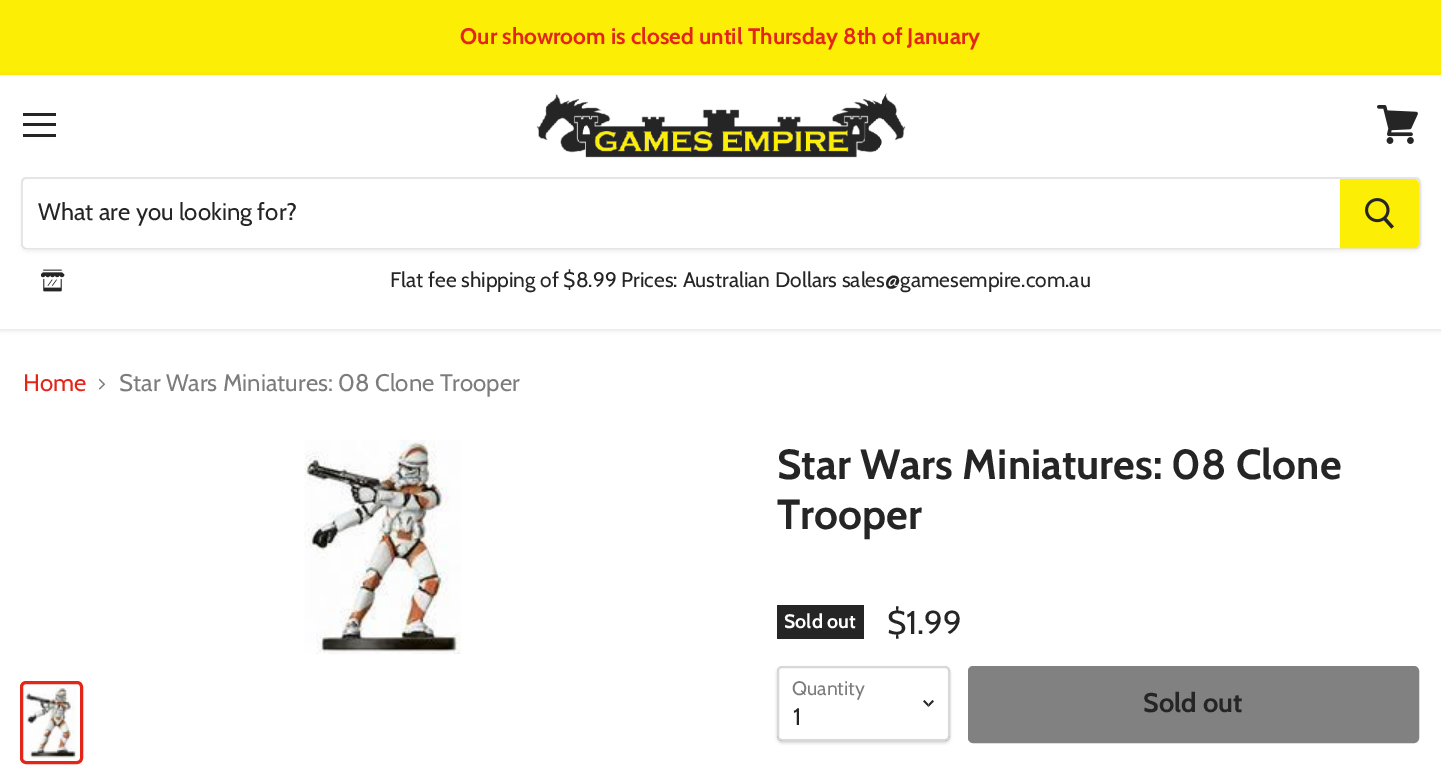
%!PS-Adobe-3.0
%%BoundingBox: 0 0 1441 766
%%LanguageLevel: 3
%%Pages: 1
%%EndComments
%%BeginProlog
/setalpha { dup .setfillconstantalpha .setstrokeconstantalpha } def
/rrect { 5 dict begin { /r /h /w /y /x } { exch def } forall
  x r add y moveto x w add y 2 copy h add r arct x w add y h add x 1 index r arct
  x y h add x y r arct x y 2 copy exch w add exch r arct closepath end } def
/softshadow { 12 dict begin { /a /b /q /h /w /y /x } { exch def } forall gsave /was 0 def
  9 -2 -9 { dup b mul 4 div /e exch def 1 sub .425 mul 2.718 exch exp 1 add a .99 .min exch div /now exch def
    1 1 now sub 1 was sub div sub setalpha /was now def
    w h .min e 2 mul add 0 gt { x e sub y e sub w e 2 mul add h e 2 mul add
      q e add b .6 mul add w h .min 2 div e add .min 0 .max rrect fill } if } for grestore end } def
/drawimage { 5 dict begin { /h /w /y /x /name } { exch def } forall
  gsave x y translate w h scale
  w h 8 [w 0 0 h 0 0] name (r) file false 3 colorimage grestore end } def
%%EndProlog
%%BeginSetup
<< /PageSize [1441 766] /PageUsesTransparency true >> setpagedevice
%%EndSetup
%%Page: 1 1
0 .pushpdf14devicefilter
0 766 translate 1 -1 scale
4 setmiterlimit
1 setgray
0 0 1441 766 rectfill
0.992 0.933 0.02 setrgbcolor
0 0 1441 75 rectfill
0.498 setgray
0 77 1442 253 0 3 0.25 softshadow
1 setgray
0 75 1441 254 rectfill
0.145 setgray
23 113 33 3 rectfill
23 123 33 3 rectfill
23 134 33 3 rectfill
(images/1.raw) 1377 105 41 39 drawimage
(images/2.raw) 536 93 370 65 drawimage
gsave
newpath 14 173 moveto 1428 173 lineto 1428 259 lineto 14 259 lineto closepath 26 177 moveto 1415 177 lineto 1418.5 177 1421 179.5 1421 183 curveto 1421 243 lineto 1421 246.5 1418.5 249 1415 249 curveto 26 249 lineto 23 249 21 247 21 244 curveto 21 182 lineto 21 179 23 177 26 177 curveto closepath eoclip newpath
0.498 setgray
21 180 1400 72 6 2 0.11 softshadow
grestore
0.2 setalpha
0.498 setgray
2 setlinewidth
newpath 26 178 moveto 1415 178 lineto 1418 178 1420 180 1420 183 curveto 1420 243 lineto 1420 246 1418 248 1415 248 curveto 26 248 lineto 24 248 22 246 22 244 curveto 22 182 lineto 22 180 24 178 26 178 curveto closepath stroke
1 setalpha
1 setgray
newpath 28 179 moveto 1340 179 lineto 1340 248 lineto 28 248 lineto 25 248 23 246 23 243 curveto 23 184 lineto 23 181 25 179 28 179 curveto closepath fill
0.992 0.933 0.02 setrgbcolor
newpath 1341 180 moveto 1414 180 lineto 1416 180 1418 182 1418 184 curveto 1418 243 lineto 1418 245 1416 247 1414 247 curveto 1341 247 lineto closepath gsave fill grestore
stroke
(images/3.raw) 1365 198 29 31 drawimage
(images/4.raw) 41 269 24 23 drawimage
(images/5.raw) 99 378 7 12 drawimage
(images/6.raw) 304 440 157 214 drawimage
0.89 0.149 0.098 setrgbcolor
3 setlinewidth
21.5 682.5 60 80 4.5 rrect stroke
(images/7.raw) 25 687 52 71 drawimage
0.145 setgray
777 605 87 34 rectfill
gsave
newpath 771 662 moveto 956 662 lineto 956 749 lineto 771 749 lineto closepath 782 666 moveto 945 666 lineto 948 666 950 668 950 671 curveto 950 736 lineto 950 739 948 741 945 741 curveto 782 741 lineto 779 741 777 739 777 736 curveto 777 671 lineto 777 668 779 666 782 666 curveto closepath eoclip newpath
0 setgray
777 668 173 75 5 1.5 0.15 softshadow
grestore
0.3 setalpha
0.498 setgray
2 setlinewidth
778 667 171 73 4 rrect stroke
1 setalpha
(images/8.raw) 923 700 11 7 drawimage
0.506 setgray
969 667 449 75 4 rrect gsave fill grestore
stroke
/Cabin-Bold [22.5 0 0 -22.5 0 0] selectfont
0.89 0.149 0.098 setrgbcolor
460 44 moveto (Our showroom is closed until Thursday 8th of January) show
/Cabin-Regular [24 0 0 -24 0 0] selectfont
0.145 setgray
38 220 moveto (What are you looking for?) show
/Cabin-Regular [21 0 0 -21 0 0] selectfont
390 287 moveto (Flat fee shipping of $8.99 Prices: Australian Dollars sales@gamesempire.com.au) show
/Cabin-Regular [24 0 0 -24 0 0] selectfont
0.89 0.149 0.098 setrgbcolor
23 391 moveto (Home) show
0.486 setgray
119 391 moveto (Star Wars Miniatures: 08 Clone Trooper) show
/Cabin-Bold [42 0 0 -42 0 0] selectfont
0.145 setgray
777 479 moveto (Star Wars Miniatures: 08 Clone) show
777 529 moveto (Trooper) show
/Cabin-Bold [19.5 0 0 -19.5 0 0] selectfont
1 setgray
784 628 moveto (Sold out) show
/Cabin-Regular [33 0 0 -33 0 0] selectfont
0.145 setgray
887 634 moveto ($1.99) show
/Cabin-Regular [19.5 0 0 -19.5 0 0] selectfont
0.486 setgray
792 695 moveto (Quantity) show
/Cabin-Regular [24 0 0 -24 0 0] selectfont
0.145 setgray
793 725 moveto (1) show
/Cabin-Bold [27 0 0 -27 0 0] selectfont
1143 712 moveto (Sold out) show
.poppdf14devicefilter showpage
%%EOF
